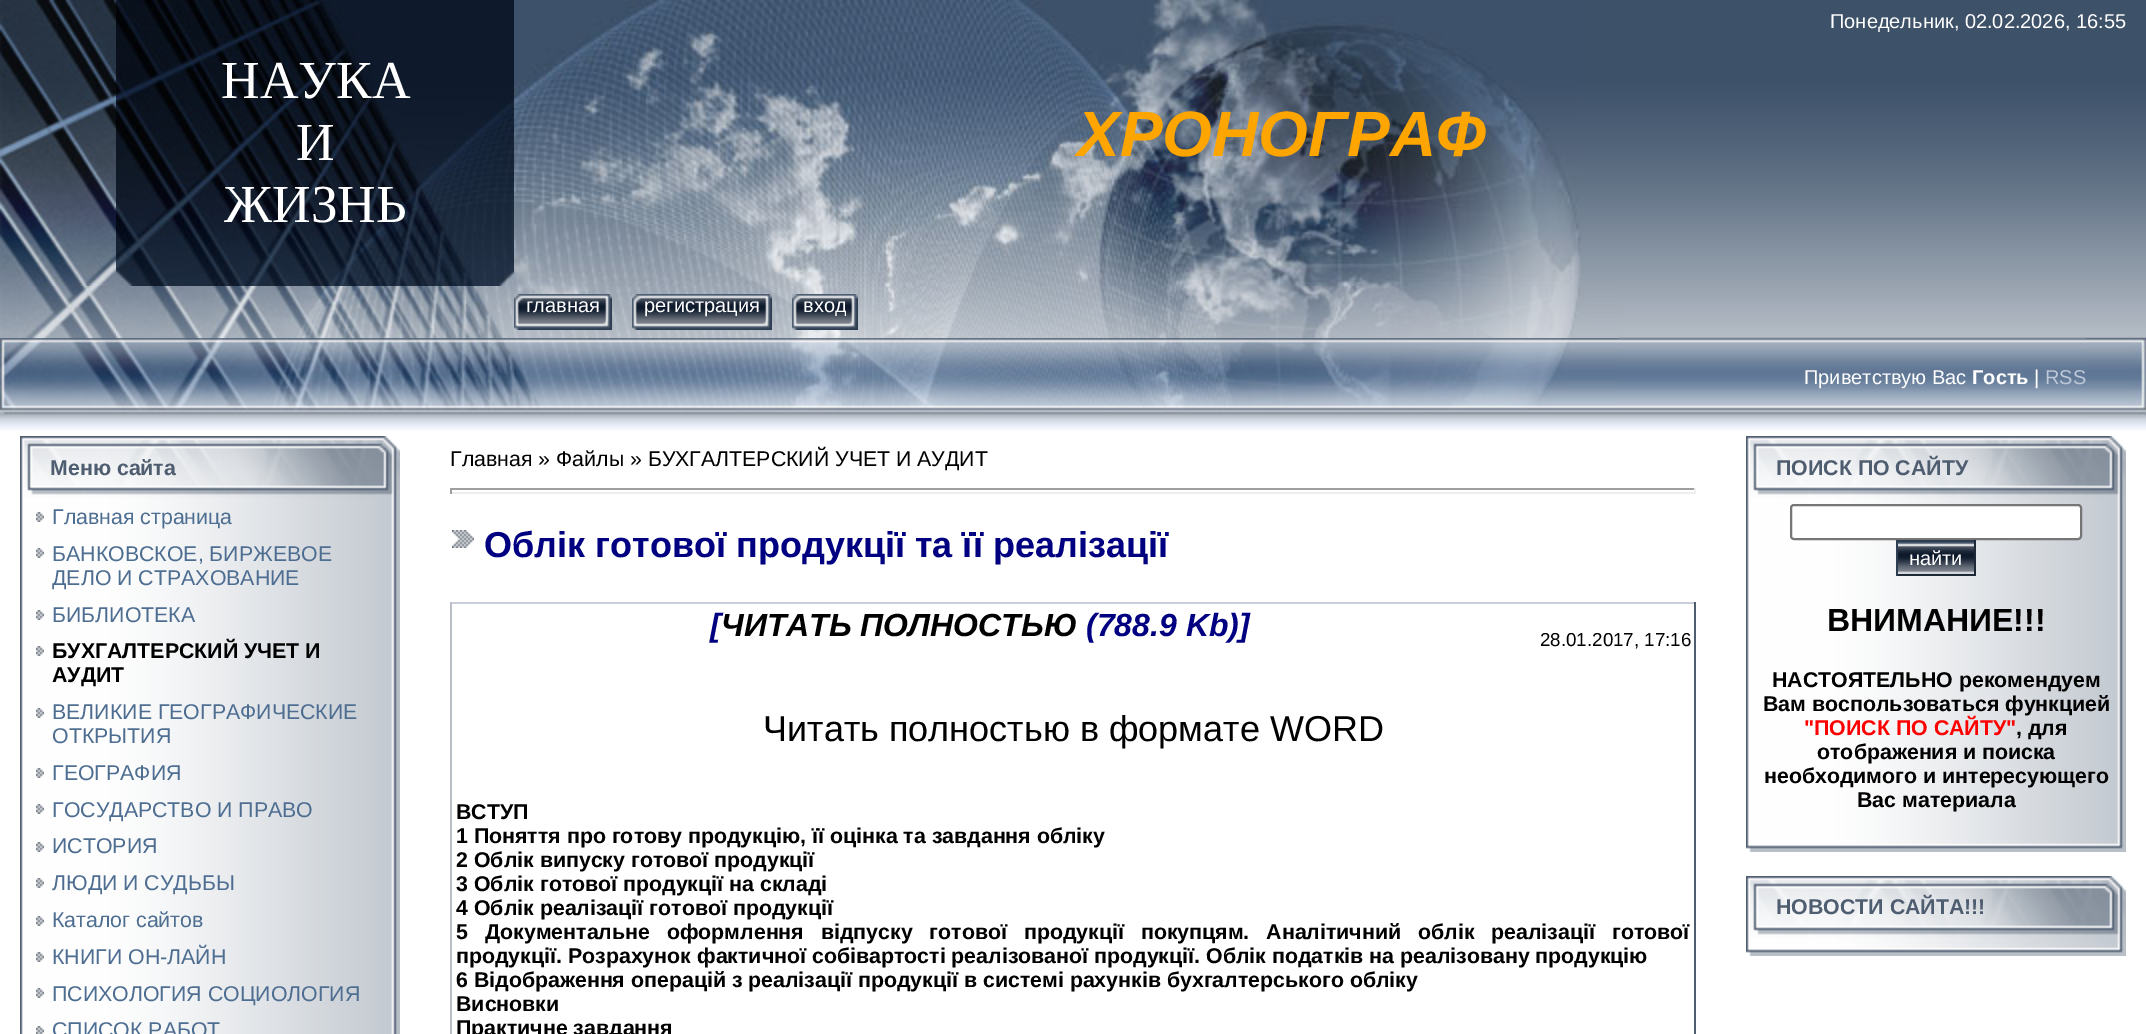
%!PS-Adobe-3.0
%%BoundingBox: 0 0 2146 1034
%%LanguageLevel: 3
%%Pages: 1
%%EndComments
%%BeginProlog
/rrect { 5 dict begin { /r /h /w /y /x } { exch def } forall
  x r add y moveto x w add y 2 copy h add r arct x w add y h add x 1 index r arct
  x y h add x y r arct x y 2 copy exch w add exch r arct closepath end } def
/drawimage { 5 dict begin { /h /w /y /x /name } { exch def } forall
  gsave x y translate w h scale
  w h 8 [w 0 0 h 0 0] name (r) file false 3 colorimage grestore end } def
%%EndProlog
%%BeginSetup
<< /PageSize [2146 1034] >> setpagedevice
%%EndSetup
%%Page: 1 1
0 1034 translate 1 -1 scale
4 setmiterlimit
1 setgray
0 0 2146 1034 rectfill
(images/1.raw) 0 0 2146 431 drawimage
(images/2.raw) 0 0 116 286 drawimage
(images/3.raw) 116 0 398 286 drawimage
(images/4.raw) 514 0 1067 286 drawimage
(images/5.raw) 0 286 116 52 drawimage
(images/6.raw) 116 286 398 52 drawimage
(images/7.raw) 514 286 1104 52 drawimage
(images/8.raw) 523 294 89 36 drawimage
(images/9.raw) 514 294 9 36 drawimage
(images/10.raw) 603 294 9 35 drawimage
(images/11.raw) 641 294 131 36 drawimage
(images/9.raw) 632 294 9 36 drawimage
(images/10.raw) 763 294 9 35 drawimage
(images/12.raw) 801 294 57 36 drawimage
(images/9.raw) 792 294 9 36 drawimage
(images/14.raw) 0 338 60 77 drawimage
(images/15.raw) 60 338 1558 76 drawimage
(images/16.raw) 2086 338 60 80 drawimage
(images/17.raw) 20 436 380 62 drawimage
(images/18.raw) 20 498 380 536 drawimage
(images/19.raw) 36 512 8 10 drawimage
(images/19.raw) 36 548 8 10 drawimage
(images/19.raw) 36 610 8 10 drawimage
(images/19.raw) 36 646 8 10 drawimage
(images/19.raw) 36 708 8 10 drawimage
(images/19.raw) 36 768 8 10 drawimage
(images/19.raw) 36 804 8 10 drawimage
(images/19.raw) 36 842 8 10 drawimage
(images/19.raw) 36 878 8 10 drawimage
(images/19.raw) 36 916 8 10 drawimage
(images/19.raw) 36 952 8 10 drawimage
(images/19.raw) 36 988 8 10 drawimage
(images/20.raw) 36 1026 8 8 drawimage
0.624 setgray
450 488 1246 2 rectfill
0.933 setgray
1694 488 2 6 rectfill
450 492 1246 2 rectfill
0.624 setgray
450 488 2 6 rectfill
(images/21.raw) 452 530 22 18 drawimage
0.788 0.812 0.847 setrgbcolor
450 602 1246 2 rectfill
0.31 0.365 0.443 setrgbcolor
1694 602 2 432 rectfill
0.725 0.749 0.78 setrgbcolor
450 602 2 432 rectfill
(images/17.raw) 1746 436 380 62 drawimage
(images/22.raw) 1746 498 380 342 drawimage
1 setgray
1791 505 290 34 3 rrect gsave fill grestore
0.463 setgray
2 setlinewidth
stroke
(images/23.raw) 1898 542 76 32 drawimage
0.173 0.239 0.322 setrgbcolor
1896 540 80 2 rectfill
0.114 0.161 0.216 setrgbcolor
1974 540 2 36 rectfill
1896 574 80 2 rectfill
0.173 0.239 0.322 setrgbcolor
1896 540 2 36 rectfill
(images/24.raw) 1746 840 380 12 drawimage
(images/17.raw) 1746 876 380 62 drawimage
(images/25.raw) 1746 938 380 6 drawimage
(images/24.raw) 1746 944 380 12 drawimage
/LiberationSerif-Regular [53.5 0 0 -53.5 0 0] selectfont
1 setgray
221 98 moveto (НАУКА) show
296 160 moveto (И) show
224 222 moveto (ЖИЗНЬ) show
/LiberationSans-Regular [20 0 0 -20 0 0] selectfont
1830 28 moveto (Понедельник, 02.02.2026, 16:55) show
/LiberationSans-BoldItalic [64 0 0 -64 0 0] selectfont
1 0.647 0 setrgbcolor
1077 156 moveto (ХРОНОГРАФ) show
/LiberationSans-Regular [20 0 0 -20 0 0] selectfont
1 setgray
526 312 moveto (главная) show
644 312 moveto (регистрация) show
803 312 moveto (вход) show
(images/13.raw) 846 294 12 35 drawimage
1804 384 moveto (Приветствую Вас) show
/LiberationSans-Bold [20 0 0 -20 0 0] selectfont
1972 384 moveto (Гость) show
/LiberationSans-Regular [20 0 0 -20 0 0] selectfont
2034 384 moveto (|) show
0.741 0.784 0.847 setrgbcolor
2045 384 moveto (RSS) show
/LiberationSans-Bold [21.33 0 0 -21.33 0 0] selectfont
0.31 0.365 0.443 setrgbcolor
50 475 moveto (Меню сайта) show
/LiberationSans-Regular [21.33 0 0 -21.33 0 0] selectfont
0.302 0.427 0.569 setrgbcolor
52 524 moveto (Главная страница) show
52 561 moveto (БАНКОВСКОЕ, БИРЖЕВОЕ) show
52 585 moveto (ДЕЛО И СТРАХОВАНИЕ) show
52 622 moveto (БИБЛИОТЕКА) show
/LiberationSans-Bold [21.33 0 0 -21.33 0 0] selectfont
0 setgray
52 658 moveto (БУХГАЛТЕРСКИЙ УЧЕТ И) show
52 682 moveto (АУДИТ) show
/LiberationSans-Regular [21.33 0 0 -21.33 0 0] selectfont
0.302 0.427 0.569 setrgbcolor
52 719 moveto (ВЕЛИКИЕ ГЕОГРАФИЧЕСКИЕ) show
52 743 moveto (ОТКРЫТИЯ) show
52 780 moveto (ГЕОГРАФИЯ) show
52 817 moveto (ГОСУДАРСТВО И ПРАВО) show
52 853 moveto (ИСТОРИЯ) show
52 890 moveto (ЛЮДИ И СУДЬБЫ) show
52 927 moveto (Каталог сайтов) show
52 964 moveto (КНИГИ ОН-ЛАЙН) show
52 1001 moveto (ПСИХОЛОГИЯ СОЦИОЛОГИЯ) show
52 1037 moveto (СПИСОК РАБОТ) show
0 setgray
450 466 moveto (Главная » Файлы » БУХГАЛТЕРСКИЙ УЧЕТ И АУДИТ) show
/LiberationSans-Bold [36 0 0 -36 0 0] selectfont
0 0 0.502 setrgbcolor
484 557 moveto (Облік готової продукції та її реалізації) show
/LiberationSans-BoldItalic [32 0 0 -32 0 0] selectfont
710 636 moveto ([) show
0 setgray
721 636 moveto (ЧИТАТЬ ПОЛНОСТЬЮ) show
0 0 0.502 setrgbcolor
1086 636 moveto (\(788.9 Kb\)]) show
/LiberationSans-Regular [18.75 0 0 -18.75 0 0] selectfont
0 setgray
1540 646 moveto (28.01.2017, 17:16) show
/LiberationSans-Regular [36 0 0 -36 0 0] selectfont
763 741 moveto (Читать полностью в формате WORD) show
/LiberationSans-Bold [21.33 0 0 -21.33 0 0] selectfont
456 819 moveto (ВСТУП) show
456 843 moveto (1 Поняття про готову продукцію, її оцінка та завдання обліку) show
456 867 moveto (2 Облік випуску готової продукції) show
456 891 moveto (3 Облік готової продукції на складі) show
456 915 moveto (4 Облік реалізації готової продукції) show
456 939 moveto 11 0 32 (5 Документальне оформлення відпуску готової продукції покупцям. Аналітичний облік реалізації готової) widthshow
456 963 moveto (продукції. Розрахунок фактичної собівартості реалізованої продукції. Облік податків на реалізовану продукцію) show
456 987 moveto (6 Відображення операцій з реалізації продукції в системі рахунків бухгалтерського обліку) show
456 1011 moveto (Висновки) show
456 1035 moveto (Практичне завдання) show
0.31 0.365 0.443 setrgbcolor
1776 475 moveto (ПОИСК ПО САЙТУ) show
/LiberationSans-Regular [20 0 0 -20 0 0] selectfont
1 setgray
1909 565 moveto (найти) show
/LiberationSans-Bold [32 0 0 -32 0 0] selectfont
0 setgray
1827 631 moveto (ВНИМАНИЕ!!!) show
/LiberationSans-Bold [21.33 0 0 -21.33 0 0] selectfont
1772 687 moveto (НАСТОЯТЕЛЬНО рекомендуем) show
1763 711 moveto (Вам воспользоваться функцией) show
1 0 0 setrgbcolor
1804 735 moveto ("ПОИСК ПО САЙТУ") show
0 setgray
2016 735 moveto (, для) show
1817 759 moveto (отображения и поиска) show
1764 783 moveto (необходимого и интересующего) show
1857 807 moveto (Вас материала) show
0.31 0.365 0.443 setrgbcolor
1776 914 moveto (НОВОСТИ САЙТА!!!) show
showpage
%%EOF
